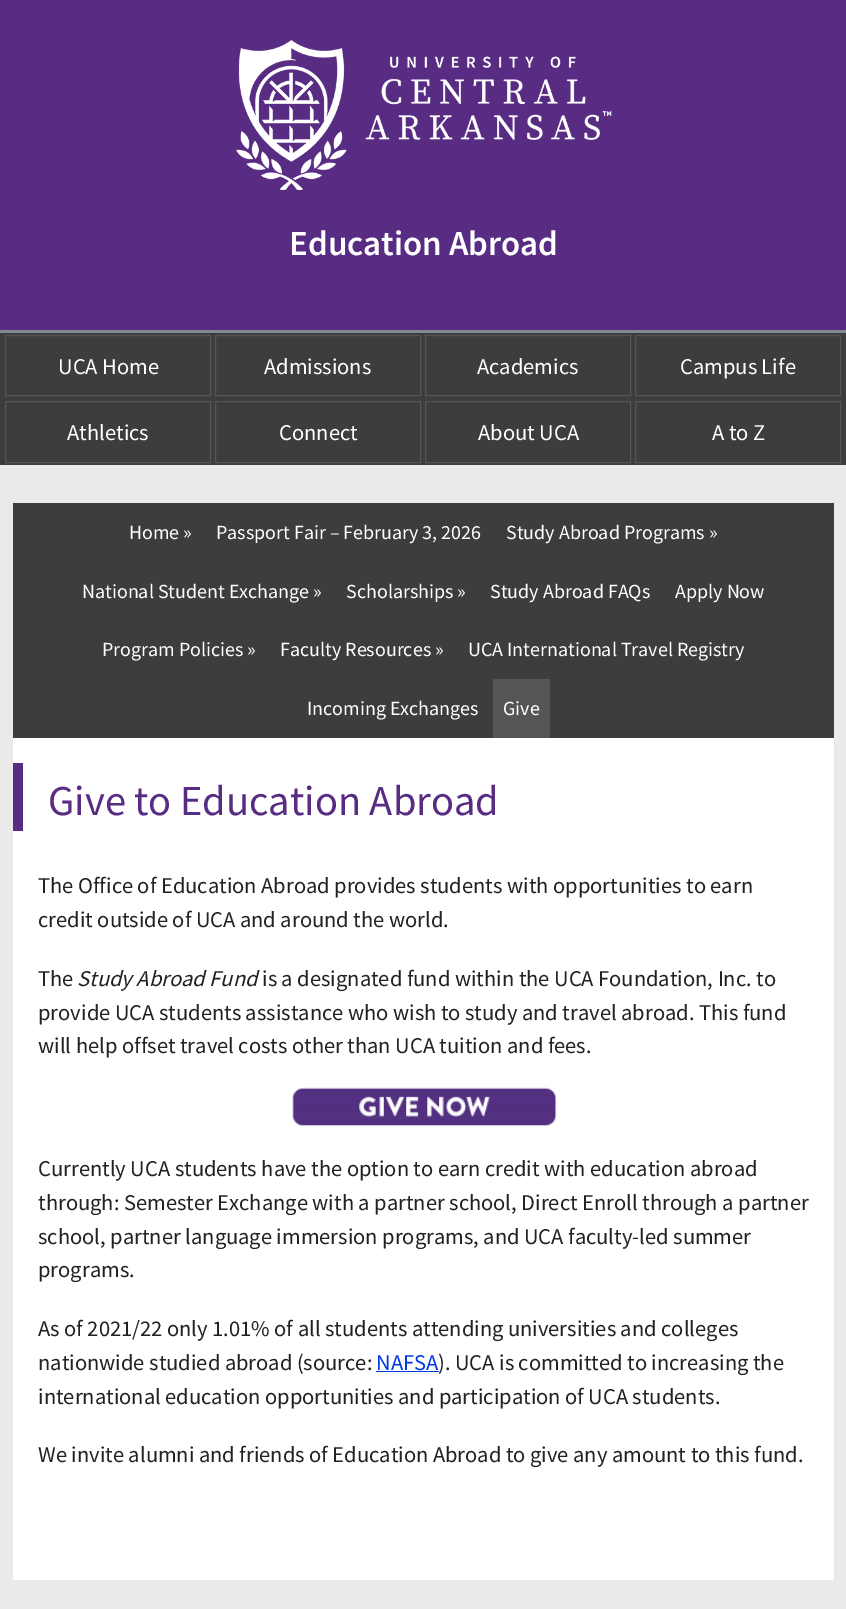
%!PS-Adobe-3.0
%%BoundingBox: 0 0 846 1609
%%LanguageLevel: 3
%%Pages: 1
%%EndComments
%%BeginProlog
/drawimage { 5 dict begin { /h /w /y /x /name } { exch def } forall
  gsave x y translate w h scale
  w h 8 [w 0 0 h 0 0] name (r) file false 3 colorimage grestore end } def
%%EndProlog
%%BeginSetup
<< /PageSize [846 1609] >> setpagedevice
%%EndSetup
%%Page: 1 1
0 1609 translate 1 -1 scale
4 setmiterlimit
0.918 setgray
0 0 846 1609 rectfill
0.345 0.173 0.514 setrgbcolor
0 0 846 330 rectfill
0.506 0.541 0.561 setrgbcolor
0 330 846 3 rectfill
(images/1.raw) 236 40 376 150 drawimage
0.239 setgray
0 333 846 132 rectfill
0.333 setgray
5.5 335.5 205 60 rectstroke
215.5 335.5 205 60 rectstroke
425.5 335.5 205 60 rectstroke
635.5 335.5 205 60 rectstroke
5.5 401.5 205 61 rectstroke
215.5 401.5 205 61 rectstroke
425.5 401.5 205 61 rectstroke
635.5 401.5 205 61 rectstroke
0.239 setgray
13 503 821 235 rectfill
0.333 setgray
493 679 57 59 rectfill
1 setgray
13 738 821 842 rectfill
0.345 0.173 0.514 setrgbcolor
13 763 10 68 rectfill
(images/2.raw) 292 1087 265 40 drawimage
0 0.224 0.902 setrgbcolor
376 1371 63 1 rectfill
/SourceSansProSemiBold-SemiBold [35 0 0 -35 0 0] selectfont
1 setgray
289 255 moveto (Education Abroad) show
/SourceSansPro-Regular [22.5 0 0 -22.5 0 0] selectfont
58 374 moveto (UCA Home) show
264 374 moveto (Admissions) show
477 374 moveto (Academics) show
680 374 moveto (Campus Life) show
67 440 moveto (Athletics) show
279 440 moveto (Connect) show
478 440 moveto (About UCA) show
712 440 moveto (A to Z) show
/SourceSansPro-Regular [20 0 0 -20 0 0] selectfont
129 539 moveto (Home ») show
216 539 moveto (Passport Fair – February 3, 2026) show
506 539 moveto (Study Abroad Programs ») show
82 598 moveto (National Student Exchange ») show
346 598 moveto (Scholarships ») show
490 598 moveto (Study Abroad FAQs) show
675 598 moveto (Apply Now) show
102 656 moveto (Program Policies ») show
280 656 moveto (Faculty Resources ») show
468 656 moveto (UCA International Travel Registry) show
307 715 moveto (Incoming Exchanges) show
503 715 moveto (Give) show
/SourceSansPro-Regular [42.5 0 0 -42.5 0 0] selectfont
0.345 0.173 0.514 setrgbcolor
48 815 moveto (Give to Education Abroad) show
/SourceSansPro-Regular [22.5 0 0 -22.5 0 0] selectfont
0.133 setgray
38 893 moveto (The Office of Education Abroad provides students with opportunities to earn) show
38 927 moveto (credit outside of UCA and around the world.) show
38 986 moveto (The) show
/SourceSansPro-Italic [22.5 0 0 -22.5 0 0] selectfont
77 986 moveto (Study Abroad Fund) show
/SourceSansPro-Regular [22.5 0 0 -22.5 0 0] selectfont
262 986 moveto (is a designated fund within the UCA Foundation, Inc. to) show
38 1020 moveto (provide UCA students assistance who wish to study and travel abroad. This fund) show
38 1053 moveto (will help offset travel costs other than UCA tuition and fees.) show
38 1176 moveto (Currently UCA students have the option to earn credit with education abroad) show
38 1210 moveto (through: Semester Exchange with a partner school, Direct Enroll through a partner) show
38 1244 moveto (school, partner language immersion programs, and UCA faculty-led summer) show
38 1277 moveto (programs.) show
38 1336 moveto (As of 2021/22 only 1.01% of all students attending universities and colleges) show
38 1370 moveto (nationwide studied abroad \(source:) show
0 0.224 0.902 setrgbcolor
376 1370 moveto (NAFSA) show
0.133 setgray
438 1370 moveto (\). UCA is committed to increasing the) show
38 1404 moveto (international education opportunities and participation of UCA students.) show
38 1462 moveto (We invite alumni and friends of Education Abroad to give any amount to this fund.) show
showpage
%%EOF
